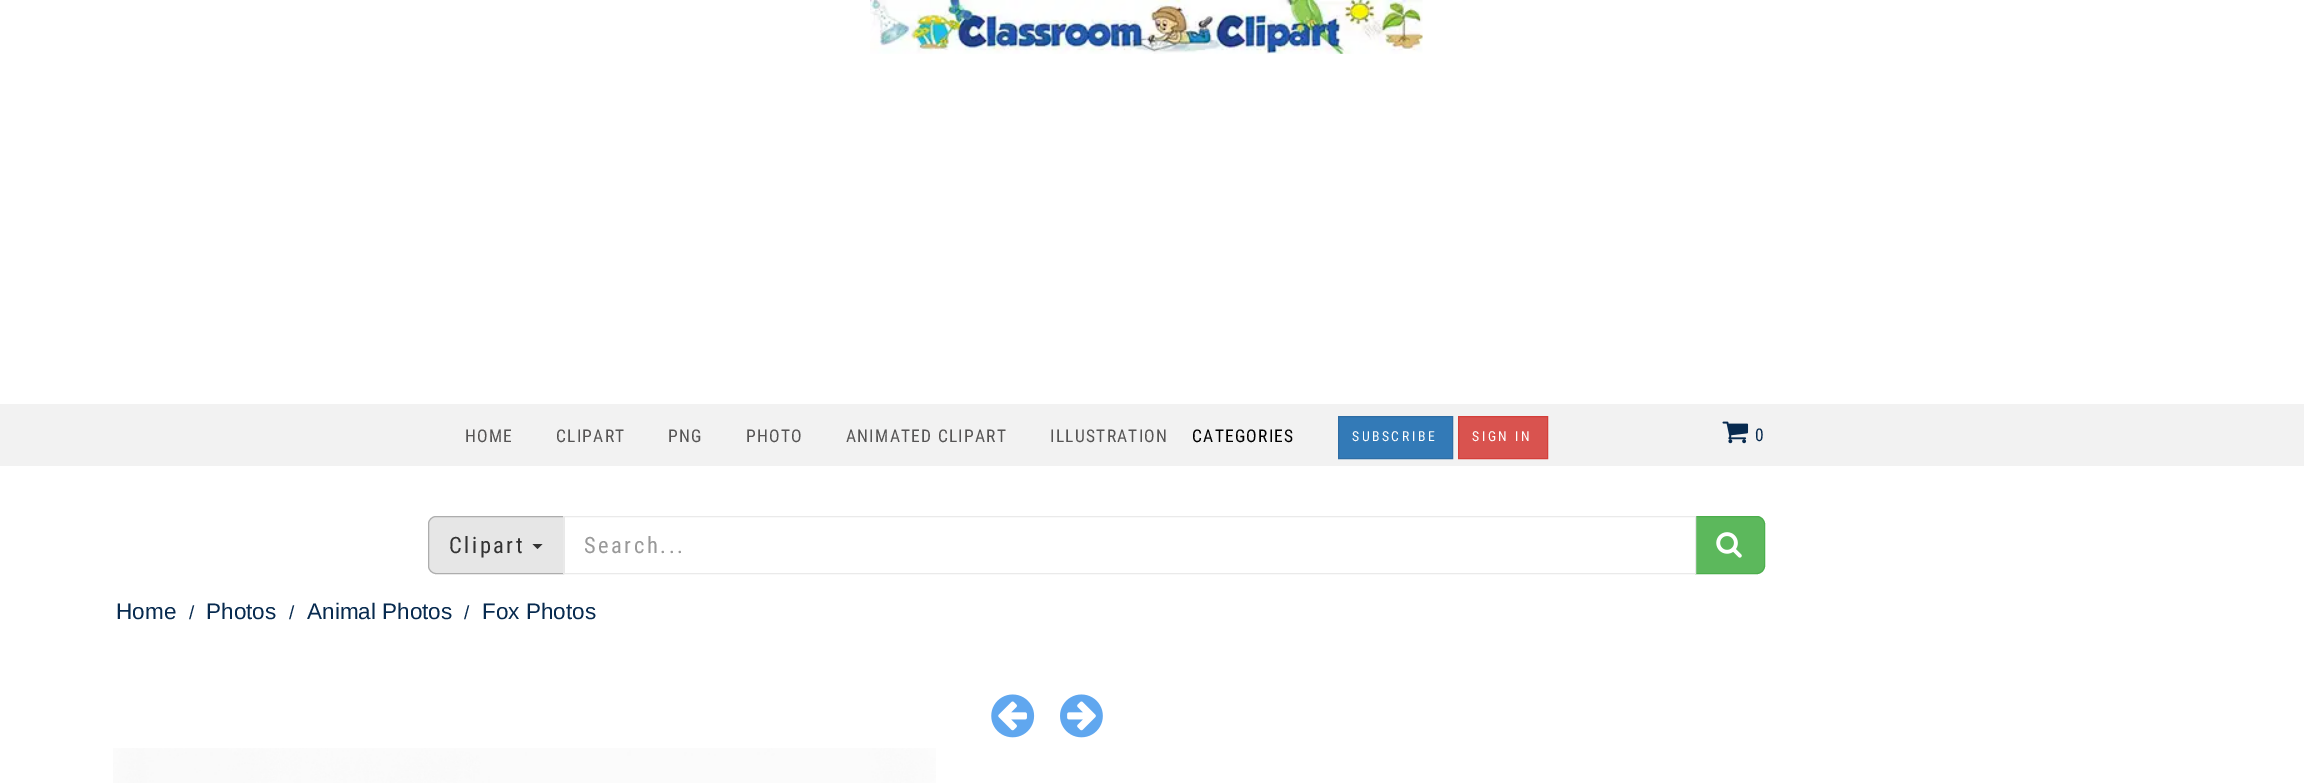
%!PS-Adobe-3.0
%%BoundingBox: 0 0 2304 783
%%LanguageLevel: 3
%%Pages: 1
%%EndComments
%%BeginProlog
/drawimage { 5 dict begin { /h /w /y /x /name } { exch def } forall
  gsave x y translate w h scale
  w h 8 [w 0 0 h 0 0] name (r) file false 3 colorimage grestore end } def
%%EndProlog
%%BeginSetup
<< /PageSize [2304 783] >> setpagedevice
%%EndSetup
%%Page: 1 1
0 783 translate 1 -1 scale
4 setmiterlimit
1 setgray
0 0 2304 783 rectfill
(images/1.raw) 870 0 553 54 drawimage
0.949 setgray
0 404 2304 62 rectfill
0.2 0.478 0.718 setrgbcolor
newpath 1338.5 416.5 moveto 1452.5 416.5 lineto 1452.5 458.5 lineto 1338.5 458.5 lineto closepath gsave fill grestore
0.18 0.427 0.643 setrgbcolor
stroke
0.851 0.325 0.31 setrgbcolor
newpath 1458.5 416.5 moveto 1547.5 416.5 lineto 1547.5 458.5 lineto 1458.5 458.5 lineto closepath gsave fill grestore
0.831 0.247 0.227 setrgbcolor
stroke
(images/2.raw) 1722 421 27 23 drawimage
0.902 setgray
newpath 436 516.5 moveto 563.5 516.5 lineto 563.5 573.5 lineto 436 573.5 lineto 432 573.5 428.5 570 428.5 566 curveto 428.5 524 lineto 428.5 520 432 516.5 436 516.5 curveto closepath gsave fill grestore
0.678 setgray
stroke
0.2 setgray
newpath 532.5 544 moveto 542.5 544 lineto 537.5 549 lineto closepath fill
0.361 0.722 0.361 setrgbcolor
newpath 1695.5 516.5 moveto 1757 516.5 lineto 1761 516.5 1764.5 520 1764.5 524 curveto 1764.5 566 lineto 1764.5 570 1761 573.5 1757 573.5 curveto 1695.5 573.5 lineto closepath gsave fill grestore
0.298 0.682 0.298 setrgbcolor
stroke
0.918 setgray
563.5 516.5 1132 57 rectstroke
(images/3.raw) 1716 532 26 26 drawimage
(images/4.raw) 991 694 44 44 drawimage
(images/5.raw) 1060 694 43 44 drawimage
(images/6.raw) 113 748 823 35 drawimage
/RobotoCondensed-Regular [17.5 0 0 -17.5 0 0] selectfont
0.337 0.333 0.333 setrgbcolor
465 442 moveto 1.25 0 (HOME) ashow
556 442 moveto 1.25 0 (CLIPART) ashow
668 442 moveto 1.25 0 (PNG) ashow
746 442 moveto 1.25 0 (PHOTO) ashow
846 442 moveto 1.25 0 (ANIMATED CLIPART) ashow
1050 442 moveto 1.25 0 (ILLUSTRATION) ashow
0 setgray
1192 442 moveto 1.25 0 (CATEGORIES) ashow
/RobotoCondensed-Regular [13.75 0 0 -13.75 0 0] selectfont
1 setgray
1352 441 moveto 2.5 0 (SUBSCRIBE) ashow
1472 441 moveto 2.5 0 (SIGN IN) ashow
/RobotoCondensed-Regular [17.5 0 0 -17.5 0 0] selectfont
0.027 0.165 0.31 setrgbcolor
1755 441 moveto 1.25 0 (0) ashow
/RobotoCondensed-Regular [22.5 0 0 -22.5 0 0] selectfont
0.2 setgray
449 553 moveto 2.5 0 (Clipart) ashow
0.6 setgray
584 553 moveto 2.5 0 (Search...) ashow
/LiberationSans-Regular [22.5 0 0 -22.5 0 0] selectfont
0.027 0.165 0.31 setrgbcolor
116 619 moveto (Home) show
/LiberationSans-Regular [19 0 0 -19 0 0] selectfont
189 619 moveto (/) show
/LiberationSans-Regular [22.5 0 0 -22.5 0 0] selectfont
206 619 moveto (Photos) show
/LiberationSans-Regular [19 0 0 -19 0 0] selectfont
289 619 moveto (/) show
/LiberationSans-Regular [22.5 0 0 -22.5 0 0] selectfont
307 619 moveto (Animal Photos) show
/LiberationSans-Regular [19 0 0 -19 0 0] selectfont
464 619 moveto (/) show
/LiberationSans-Regular [22.5 0 0 -22.5 0 0] selectfont
482 619 moveto (Fox Photos) show
showpage
%%EOF
